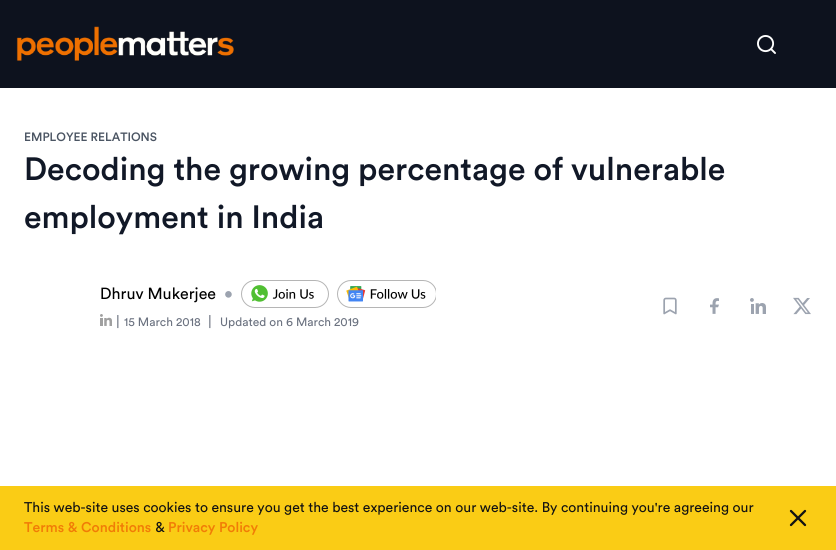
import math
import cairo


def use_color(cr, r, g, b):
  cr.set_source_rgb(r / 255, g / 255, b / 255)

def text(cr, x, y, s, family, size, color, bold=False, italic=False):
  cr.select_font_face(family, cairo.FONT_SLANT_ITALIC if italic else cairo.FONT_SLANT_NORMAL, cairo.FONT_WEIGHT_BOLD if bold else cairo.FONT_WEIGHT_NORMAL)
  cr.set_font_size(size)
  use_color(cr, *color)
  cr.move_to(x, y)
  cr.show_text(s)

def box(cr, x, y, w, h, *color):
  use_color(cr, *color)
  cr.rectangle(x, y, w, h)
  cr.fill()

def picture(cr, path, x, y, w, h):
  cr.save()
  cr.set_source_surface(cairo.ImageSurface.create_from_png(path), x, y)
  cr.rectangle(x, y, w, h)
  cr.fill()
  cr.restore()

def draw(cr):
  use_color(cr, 255, 255, 255)
  cr.paint()
  box(cr, 0, 0, 836, 88, 13, 18, 30)
  picture(cr, "img_01.png", 16, 26, 218, 35)
  picture(cr, "img_02.png", 757, 35, 19, 19)
  picture(cr, "img_03.png", 241, 280, 88, 28)
  picture(cr, "img_04.png", 337, 280, 99, 28)
  picture(cr, "img_05.png", 100, 314, 12, 12)
  picture(cr, "img_06.png", 663, 297, 14, 18)
  picture(cr, "img_07.png", 710, 298, 9, 16)
  picture(cr, "img_08.png", 750, 298, 16, 16)
  picture(cr, "img_09.png", 793, 297, 18, 18)
  box(cr, 0, 486, 836, 64, 250, 204, 21)
  cr.new_path()
  cr.move_to(805, 511)
  cr.line_to(791, 525)
  cr.move_to(791, 511)
  cr.line_to(805, 525)
  use_color(cr, 18, 18, 18)
  cr.set_line_width(2.3)
  cr.set_line_cap(cairo.LINE_CAP_ROUND)
  cr.set_line_join(cairo.LINE_JOIN_ROUND)
  cr.stroke()
  text(cr, 24, 141, "EMPLOYEE RELATIONS", "Circular Medium", 12, (75, 85, 99))
  text(cr, 24, 180, "Decoding the growing percentage of vulnerable", "Circular Medium", 32, (17, 24, 39))
  text(cr, 24, 228, "employment in India", "Circular Medium", 32, (17, 24, 39))
  text(cr, 100, 299, "Dhruv Mukerjee", "Circular", 16, (0, 0, 0))
  text(cr, 224, 299, "•", "Circular", 16, (156, 163, 175))
  text(cr, 116, 326, "|", "Circular", 14, (107, 114, 128))
  text(cr, 124, 326, "15 March 2018", "Circular", 12, (107, 114, 128))
  text(cr, 208, 326, "|", "Circular", 14, (107, 114, 128))
  text(cr, 220, 326, "Updated on 6 March 2019", "Circular", 12, (107, 114, 128))
  text(cr, 24, 512, "This web-site uses cookies to ensure you get the best experience on our web-site. By continuing you're agreeing our", "Circular", 14, (18, 18, 18))
  text(cr, 24, 532, "Terms & Conditions", "Circular Medium", 14, (241, 124, 6))
  text(cr, 155, 532, "&", "Circular", 14, (18, 18, 18))
  text(cr, 168, 532, "Privacy Policy", "Circular Medium", 14, (241, 124, 6))


surface = cairo.ImageSurface(cairo.FORMAT_RGB24, 836, 550)
cr = cairo.Context(surface)
options = cairo.FontOptions()
options.set_hint_metrics(cairo.HINT_METRICS_OFF)
options.set_hint_style(cairo.HINT_STYLE_NONE)
cr.set_font_options(options)
cr.set_miter_limit(4)
draw(cr)
surface.write_to_png("out.png")
